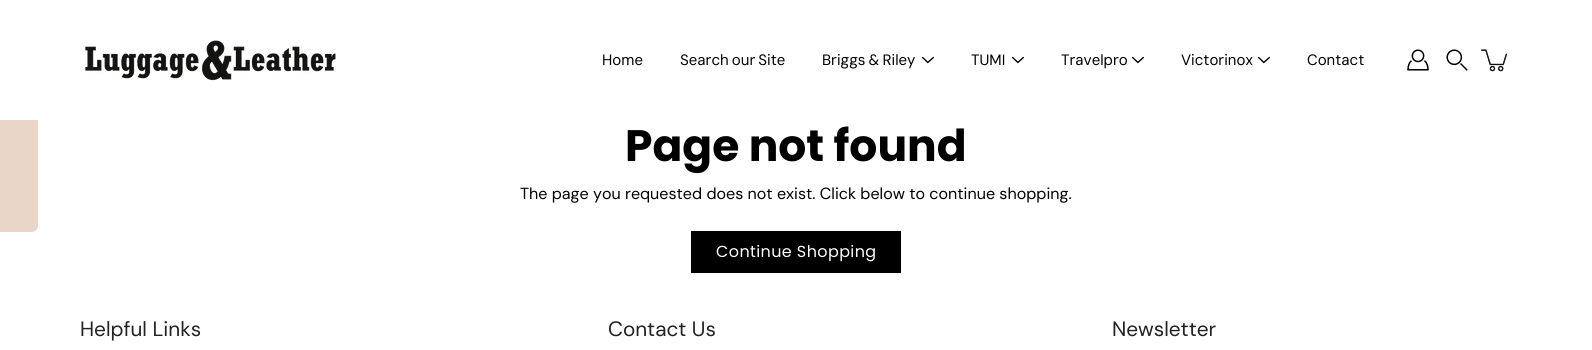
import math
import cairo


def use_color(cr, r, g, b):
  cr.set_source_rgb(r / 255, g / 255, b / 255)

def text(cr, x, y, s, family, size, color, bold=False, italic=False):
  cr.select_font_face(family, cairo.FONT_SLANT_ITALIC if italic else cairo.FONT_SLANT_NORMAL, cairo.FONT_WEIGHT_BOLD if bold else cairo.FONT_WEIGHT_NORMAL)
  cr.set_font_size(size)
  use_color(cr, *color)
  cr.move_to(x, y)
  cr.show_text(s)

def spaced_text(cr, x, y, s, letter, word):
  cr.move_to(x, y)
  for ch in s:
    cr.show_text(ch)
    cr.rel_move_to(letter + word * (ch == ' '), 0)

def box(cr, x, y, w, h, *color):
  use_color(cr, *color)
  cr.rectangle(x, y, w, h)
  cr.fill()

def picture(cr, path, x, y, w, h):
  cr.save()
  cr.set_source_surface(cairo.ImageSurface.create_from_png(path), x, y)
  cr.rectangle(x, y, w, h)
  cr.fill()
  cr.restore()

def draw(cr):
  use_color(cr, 255, 255, 255)
  cr.paint()
  use_color(cr, 234, 214, 201)
  cr.new_path()
  cr.move_to(-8, 226)
  cr.line_to(-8, 78)
  cr.curve_to(-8, 75, -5, 72, -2, 72)
  cr.line_to(32, 72)
  cr.curve_to(35, 72, 38, 75, 38, 78)
  cr.line_to(38, 226)
  cr.curve_to(38, 229, 35, 232, 32, 232)
  cr.line_to(-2, 232)
  cr.curve_to(-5, 232, -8, 229, -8, 226)
  cr.close_path()
  cr.fill()
  box(cr, 0, 72, 38, 48, 255, 255, 255)
  picture(cr, "img_01.png", 85, 40, 251, 41)
  picture(cr, "img_02.png", 922, 56, 12, 8)
  picture(cr, "img_02.png", 1012, 56, 12, 8)
  picture(cr, "img_02.png", 1132, 56, 12, 8)
  picture(cr, "img_02.png", 1258, 56, 12, 8)
  picture(cr, "img_03.png", 1407, 49, 22, 22)
  picture(cr, "img_04.png", 1446, 49, 22, 22)
  picture(cr, "img_05.png", 1481, 49, 26, 23)
  box(cr, 691, 231, 210, 42, 0, 0, 0)
  text(cr, 602, 65, "Home", "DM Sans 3", 15, (0, 0, 0))
  spaced_text(cr, 680, 65, "Search our Site", 0, -1)
  spaced_text(cr, 822, 65, "Briggs & Riley", 0, -1)
  text(cr, 971, 65, "TUMI", "DM Sans 3", 15, (0, 0, 0))
  text(cr, 1061, 65, "Travelpro", "DM Sans 3", 15, (0, 0, 0))
  text(cr, 1181, 65, "Victorinox", "DM Sans 3", 15, (0, 0, 0))
  text(cr, 1307, 65, "Contact", "DM Sans 3", 15, (0, 0, 0))
  text(cr, 625, 161, "Page not found", "Poppins", 44, (0, 0, 0), bold=True)
  text(cr, 520, 199, "The page you requested does not exist. Click below to continue shopping.", "DM Sans", 16.1, (0, 0, 0))
  cr.select_font_face("Poppins")
  cr.set_font_size(16)
  use_color(cr, 255, 255, 255)
  spaced_text(cr, 716, 257, "Continue Shopping", 0.4, 0)
  text(cr, 80, 336, "Helpful Links", "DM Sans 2", 20.75, (34, 34, 34))
  text(cr, 608, 336, "Contact Us", "DM Sans 2", 20.75, (34, 34, 34))
  text(cr, 1112, 336, "Newsletter", "DM Sans 2", 20.75, (34, 34, 34))


surface = cairo.ImageSurface(cairo.FORMAT_RGB24, 1592, 350)
cr = cairo.Context(surface)
options = cairo.FontOptions()
options.set_hint_metrics(cairo.HINT_METRICS_OFF)
options.set_hint_style(cairo.HINT_STYLE_NONE)
cr.set_font_options(options)
cr.set_miter_limit(4)
draw(cr)
surface.write_to_png("out.png")
